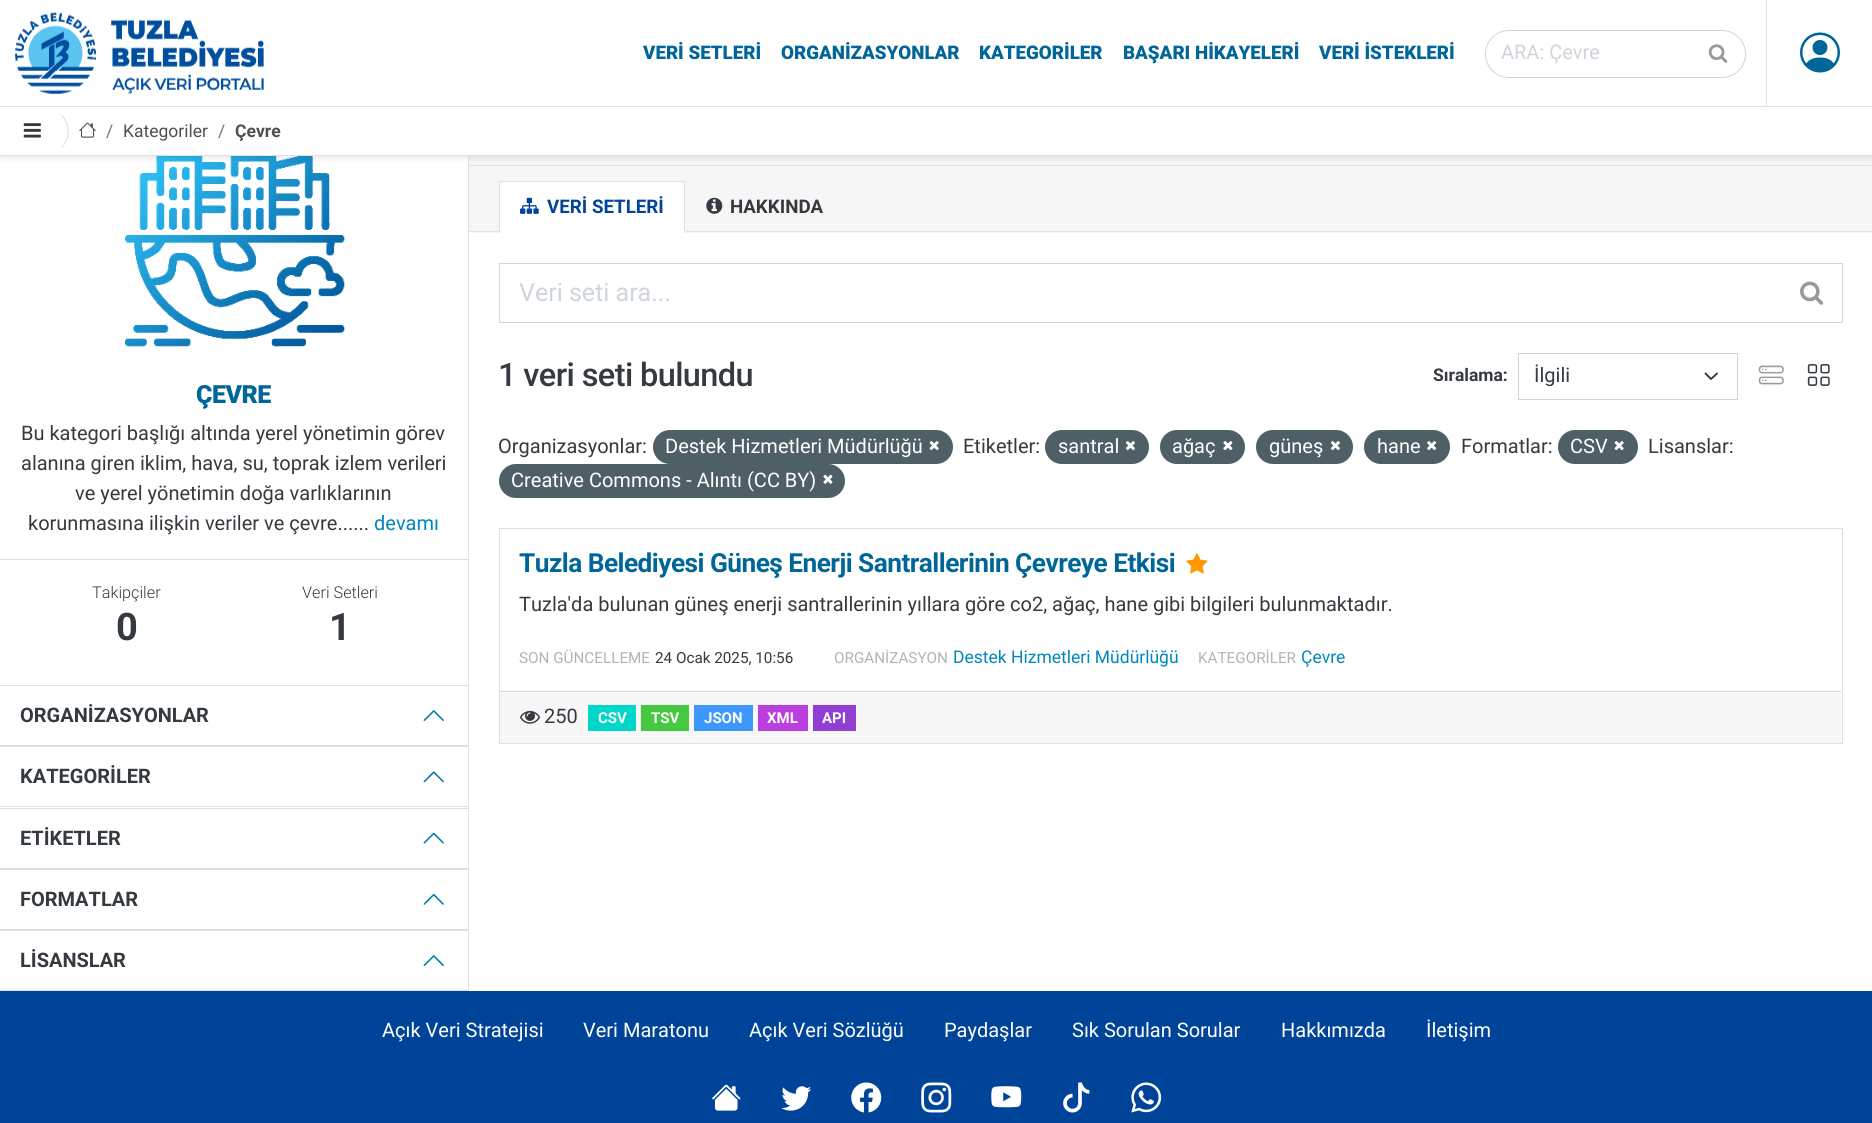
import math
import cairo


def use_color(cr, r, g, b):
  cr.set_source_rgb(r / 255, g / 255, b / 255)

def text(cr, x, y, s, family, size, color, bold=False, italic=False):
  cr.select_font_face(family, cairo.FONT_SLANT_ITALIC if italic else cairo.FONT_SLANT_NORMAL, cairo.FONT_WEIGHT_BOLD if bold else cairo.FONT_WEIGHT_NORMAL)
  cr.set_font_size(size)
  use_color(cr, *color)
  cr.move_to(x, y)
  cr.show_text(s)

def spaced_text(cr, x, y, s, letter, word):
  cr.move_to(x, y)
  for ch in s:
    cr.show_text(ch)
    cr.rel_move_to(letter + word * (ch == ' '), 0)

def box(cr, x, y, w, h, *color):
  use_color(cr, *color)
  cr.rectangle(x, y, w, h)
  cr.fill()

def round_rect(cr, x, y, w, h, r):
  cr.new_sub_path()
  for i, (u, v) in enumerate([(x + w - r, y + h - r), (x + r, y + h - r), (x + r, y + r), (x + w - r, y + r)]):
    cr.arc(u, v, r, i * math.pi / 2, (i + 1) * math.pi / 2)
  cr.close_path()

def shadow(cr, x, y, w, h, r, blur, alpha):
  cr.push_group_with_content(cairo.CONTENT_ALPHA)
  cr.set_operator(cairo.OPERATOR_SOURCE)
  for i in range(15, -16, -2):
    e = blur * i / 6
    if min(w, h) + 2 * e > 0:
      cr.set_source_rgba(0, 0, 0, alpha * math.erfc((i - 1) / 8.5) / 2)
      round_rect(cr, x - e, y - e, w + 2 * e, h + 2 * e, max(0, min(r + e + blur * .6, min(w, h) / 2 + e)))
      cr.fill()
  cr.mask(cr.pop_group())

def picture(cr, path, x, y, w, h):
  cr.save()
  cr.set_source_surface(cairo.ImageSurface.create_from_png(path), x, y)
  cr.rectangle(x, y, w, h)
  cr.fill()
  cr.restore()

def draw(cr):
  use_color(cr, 255, 255, 255)
  cr.paint()
  box(cr, 468, 156, 1, 835, 222, 226, 230)
  picture(cr, "img_06.png", 125, 156, 220, 191)
  box(cr, 469, 156, 1403, 9, 245, 245, 245)
  box(cr, 469, 165, 1403, 1, 222, 226, 230)
  box(cr, 469, 166, 1403, 67, 246, 246, 246)
  use_color(cr, 0, 0, 0)
  shadow(cr, 0, 3, 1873, 156, 0, 2.5, 0.07)
  box(cr, 0, 0, 1872, 155, 255, 255, 255)
  picture(cr, "img_01.png", 15, 12, 249, 82)
  round_rect(cr, 1485.5, 30.5, 260, 47, 23.5)
  use_color(cr, 206, 212, 218)
  cr.set_line_width(1)
  cr.stroke()
  picture(cr, "img_02.png", 1708, 44, 20, 19)
  box(cr, 1766, 0, 1, 106, 222, 226, 230)
  picture(cr, "img_03.png", 1800, 32, 40, 41)
  box(cr, 0, 106, 1872, 1, 222, 226, 230)
  box(cr, 0, 155, 1872, 1, 222, 226, 230)
  cr.new_path()
  cr.move_to(61.5, 115)
  cr.curve_to(70.5, 124, 70.5, 138.5, 61.5, 147.5)
  cr.set_line_width(1.2)
  cr.stroke()
  picture(cr, "img_04.png", 23, 123, 18, 15)
  picture(cr, "img_05.png", 79, 122, 17, 16)
  box(cr, 0, 559, 468, 1, 222, 226, 230)
  box(cr, 0, 685, 468, 1, 222, 226, 230)
  box(cr, 0, 745, 468, 2, 223, 223, 223)
  picture(cr, "img_07.png", 423, 710, 21, 11)
  box(cr, 0, 808, 468, 1, 223, 223, 223)
  box(cr, 0, 806, 468, 1, 223, 223, 223)
  picture(cr, "img_08.png", 423, 771, 21, 12)
  box(cr, 0, 868, 468, 2, 223, 223, 223)
  picture(cr, "img_09.png", 423, 832, 21, 12)
  box(cr, 0, 929, 468, 2, 223, 223, 223)
  picture(cr, "img_10.png", 423, 893, 21, 12)
  box(cr, 0, 990, 468, 1, 223, 223, 223)
  picture(cr, "img_07.png", 423, 955, 21, 11)
  box(cr, 469, 231, 1403, 1, 222, 226, 230)
  box(cr, 500, 182, 184, 51, 255, 255, 255)
  box(cr, 499, 181, 186, 1, 222, 226, 230)
  box(cr, 684, 181, 1, 52, 222, 226, 230)
  box(cr, 499, 231, 186, 1, 255, 255, 255)
  box(cr, 499, 181, 1, 52, 222, 226, 230)
  picture(cr, "img_11.png", 520, 197, 19, 17)
  picture(cr, "img_12.png", 706, 197, 17, 17)
  cr.rectangle(499.5, 263.5, 1343, 59)
  use_color(cr, 206, 212, 218)
  cr.set_line_width(1)
  cr.stroke()
  picture(cr, "img_13.png", 1800, 281, 24, 24)
  cr.new_path()
  cr.move_to(1705.5, 373.5)
  cr.line_to(1711, 379)
  cr.line_to(1717, 373.5)
  use_color(cr, 52, 58, 64)
  cr.set_line_width(1.9)
  cr.set_line_cap(cairo.LINE_CAP_ROUND)
  cr.set_line_join(cairo.LINE_JOIN_ROUND)
  cr.stroke()
  cr.rectangle(1518.5, 353.5, 219, 46)
  use_color(cr, 206, 212, 218)
  cr.set_line_width(1)
  cr.set_line_cap(cairo.LINE_CAP_BUTT)
  cr.set_line_join(cairo.LINE_JOIN_MITER)
  cr.stroke()
  picture(cr, "img_14.png", 1758, 365, 26, 20)
  picture(cr, "img_15.png", 1807, 364, 23, 22)
  use_color(cr, 78, 95, 101)
  round_rect(cr, 653, 430, 300, 34, 17)
  cr.fill()
  picture(cr, "img_16.png", 929, 441, 10, 10)
  round_rect(cr, 1045, 430, 104, 34, 17)
  cr.fill()
  picture(cr, "img_17.png", 1125, 441, 10, 10)
  round_rect(cr, 1160, 430, 85, 34, 17)
  cr.fill()
  picture(cr, "img_18.png", 1223, 441, 10, 10)
  round_rect(cr, 1256, 430, 97, 34, 17)
  cr.fill()
  picture(cr, "img_17.png", 1330, 441, 10, 10)
  round_rect(cr, 1364, 430, 86, 34, 17)
  cr.fill()
  picture(cr, "img_19.png", 1427, 441, 10, 10)
  round_rect(cr, 1558, 430, 80, 34, 17)
  cr.fill()
  picture(cr, "img_16.png", 1614, 441, 10, 10)
  round_rect(cr, 499, 464, 346, 34, 17)
  cr.fill()
  picture(cr, "img_20.png", 823, 474, 10, 10)
  cr.rectangle(499.5, 528.5, 1343, 215)
  use_color(cr, 223, 223, 223)
  cr.stroke()
  picture(cr, "img_21.png", 1186, 553, 22, 21)
  box(cr, 500, 692, 1341, 51, 247, 247, 247)
  box(cr, 500, 691, 1341, 1, 216, 216, 216)
  picture(cr, "img_22.png", 520, 710, 20, 14)
  box(cr, 588, 705, 48, 26, 1, 215, 201)
  box(cr, 641, 705, 48, 26, 69, 201, 65)
  box(cr, 694, 705, 59, 26, 62, 151, 253)
  box(cr, 758, 705, 50, 26, 187, 62, 222)
  box(cr, 813, 705, 43, 26, 144, 62, 211)
  box(cr, 0, 991, 1872, 132, 0, 68, 153)
  picture(cr, "img_23.png", 712, 1084, 29, 27)
  picture(cr, "img_24.png", 781, 1086, 31, 25)
  picture(cr, "img_25.png", 851, 1082, 31, 31)
  picture(cr, "img_26.png", 921, 1082, 31, 31)
  picture(cr, "img_27.png", 991, 1086, 31, 22)
  picture(cr, "img_28.png", 1063, 1082, 27, 31)
  picture(cr, "img_29.png", 1131, 1082, 31, 31)
  text(cr, 643, 59, "VERİ SETLERİ", "Roboto Black", 18.75, (0, 102, 153))
  text(cr, 781, 59, "ORGANİZASYONLAR", "Roboto Black", 18.75, (0, 102, 153))
  text(cr, 979, 59, "KATEGORİLER", "Roboto Black", 18.75, (0, 102, 153))
  text(cr, 1123, 59, "BAŞARI HİKAYELERİ", "Roboto Black", 18.75, (0, 102, 153))
  text(cr, 1319, 59, "VERİ İSTEKLERİ", "Roboto Black", 18.75, (0, 102, 153))
  text(cr, 1501, 59, "ARA: Çevre", "Roboto", 20, (206, 212, 218))
  text(cr, 106, 137, "/", "Roboto", 17.5, (108, 117, 125))
  text(cr, 123, 137, "Kategoriler", "Roboto", 17.5, (80, 80, 80))
  text(cr, 218, 137, "/", "Roboto", 17.5, (108, 117, 125))
  text(cr, 235, 137, "Çevre", "Roboto", 17.5, (80, 80, 80), bold=True)
  cr.select_font_face("Roboto Black")
  cr.set_font_size(25)
  use_color(cr, 0, 102, 153)
  spaced_text(cr, 196, 403, "ÇEVRE", -0.5, 0)
  text(cr, 21, 440, "Bu kategori başlığı altında yerel yönetimin görev", "Roboto", 20, (52, 58, 64))
  text(cr, 21, 470, "alanına giren iklim, hava, su, toprak izlem verileri", "Roboto", 20, (52, 58, 64))
  text(cr, 75, 500, "ve yerel yönetimin doğa varlıklarının", "Roboto", 20, (52, 58, 64))
  text(cr, 28, 530, "korunmasına ilişkin veriler ve çevre......", "Roboto", 20, (52, 58, 64))
  text(cr, 374, 530, "devamı", "Roboto", 20, (0, 136, 187))
  text(cr, 92, 598, "Takipçiler", "Roboto Light", 16.25, (52, 58, 64))
  text(cr, 116, 640, "0", "Roboto", 38, (52, 58, 64), bold=True)
  text(cr, 302, 598, "Veri Setleri", "Roboto Light", 16.25, (52, 58, 64))
  text(cr, 329, 640, "1", "Roboto", 38, (52, 58, 64), bold=True)
  text(cr, 20, 722, "ORGANİZASYONLAR", "Roboto", 20, (52, 58, 64), bold=True)
  text(cr, 20, 783, "KATEGORİLER", "Roboto", 20, (52, 58, 64), bold=True)
  text(cr, 20, 845, "ETİKETLER", "Roboto", 20, (52, 58, 64), bold=True)
  text(cr, 20, 906, "FORMATLAR", "Roboto", 20, (52, 58, 64), bold=True)
  text(cr, 20, 967, "LİSANSLAR", "Roboto", 20, (52, 58, 64), bold=True)
  text(cr, 547, 213, "VERİ SETLERİ", "Roboto", 18.75, (0, 68, 153), bold=True)
  text(cr, 730, 213, "HAKKINDA", "Roboto", 18.75, (52, 58, 64), bold=True)
  text(cr, 519, 301, "Veri seti ara...", "Roboto", 25, (206, 212, 218))
  cr.select_font_face("Roboto Medium")
  cr.set_font_size(32.5)
  use_color(cr, 52, 58, 64)
  spaced_text(cr, 498, 386, "1 veri seti bulundu", -0.6, 0)
  text(cr, 1433, 381, "Sıralama:", "Roboto", 17.5, (52, 58, 64), bold=True)
  text(cr, 1534, 382, "İlgili", "Roboto", 20, (52, 58, 64))
  text(cr, 498, 453, "Organizasyonlar:", "Roboto", 20, (52, 58, 64))
  text(cr, 665, 453, "Destek Hizmetleri Müdürlüğü", "Roboto", 20, (255, 255, 255))
  text(cr, 963, 453, "Etiketler:", "Roboto", 20, (52, 58, 64))
  text(cr, 1058, 453, "santral", "Roboto", 20, (255, 255, 255))
  text(cr, 1172, 453, "ağaç", "Roboto", 20, (255, 255, 255))
  text(cr, 1269, 453, "güneş", "Roboto", 20, (255, 255, 255))
  text(cr, 1377, 453, "hane", "Roboto", 20, (255, 255, 255))
  text(cr, 1461, 453, "Formatlar:", "Roboto", 20, (52, 58, 64))
  text(cr, 1570, 453, "CSV", "Roboto", 20, (255, 255, 255))
  text(cr, 1648, 453, "Lisanslar:", "Roboto", 20, (52, 58, 64))
  text(cr, 511, 487, "Creative Commons - Alıntı (CC BY)", "Roboto", 20, (255, 255, 255))
  cr.select_font_face("Roboto", cairo.FONT_SLANT_NORMAL, cairo.FONT_WEIGHT_BOLD)
  cr.set_font_size(26.25)
  use_color(cr, 0, 102, 153)
  spaced_text(cr, 519, 572, "Tuzla Belediyesi Güneş Enerji Santrallerinin Çevreye Etkisi", -0.53, 0)
  text(cr, 519, 611, "Tuzla'da bulunan güneş enerji santrallerinin yıllara göre co2, ağaç, hane gibi bilgileri bulunmaktadır.", "Roboto", 20, (52, 58, 64))
  text(cr, 519, 663, "SON GÜNCELLEME", "Roboto", 15.25, (173, 181, 189))
  text(cr, 655, 663, "24 Ocak 2025, 10:56", "Roboto", 15.25, (52, 58, 64))
  text(cr, 834, 663, "ORGANİZASYON", "Roboto", 15.25, (173, 181, 189))
  text(cr, 953, 663, "Destek Hizmetleri Müdürlüğü", "Roboto", 17.5, (0, 136, 187))
  text(cr, 1198, 663, "KATEGORİLER", "Roboto", 15.25, (173, 181, 189))
  text(cr, 1301, 663, "Çevre", "Roboto", 17.5, (0, 136, 187))
  text(cr, 544, 723, "250", "Roboto", 20, (52, 58, 64))
  text(cr, 598, 723, "CSV", "Roboto", 15, (255, 255, 255), bold=True)
  text(cr, 651, 723, "TSV", "Roboto", 15, (255, 255, 255), bold=True)
  text(cr, 704, 723, "JSON", "Roboto", 15, (255, 255, 255), bold=True)
  text(cr, 767, 723, "XML", "Roboto", 15, (255, 255, 255), bold=True)
  text(cr, 822, 723, "API", "Roboto", 15, (255, 255, 255), bold=True)
  text(cr, 382, 1037, "Açık Veri Stratejisi", "Roboto", 20, (255, 255, 255))
  text(cr, 583, 1037, "Veri Maratonu", "Roboto", 20, (255, 255, 255))
  text(cr, 749, 1037, "Açık Veri Sözlüğü", "Roboto", 20, (255, 255, 255))
  text(cr, 944, 1037, "Paydaşlar", "Roboto", 20, (255, 255, 255))
  text(cr, 1072, 1037, "Sık Sorulan Sorular", "Roboto", 20, (255, 255, 255))
  text(cr, 1281, 1037, "Hakkımızda", "Roboto", 20, (255, 255, 255))
  text(cr, 1426, 1037, "İletişim", "Roboto", 20, (255, 255, 255))


surface = cairo.ImageSurface(cairo.FORMAT_RGB24, 1872, 1123)
cr = cairo.Context(surface)
options = cairo.FontOptions()
options.set_hint_metrics(cairo.HINT_METRICS_OFF)
options.set_hint_style(cairo.HINT_STYLE_NONE)
cr.set_font_options(options)
cr.set_miter_limit(4)
draw(cr)
surface.write_to_png("out.png")
